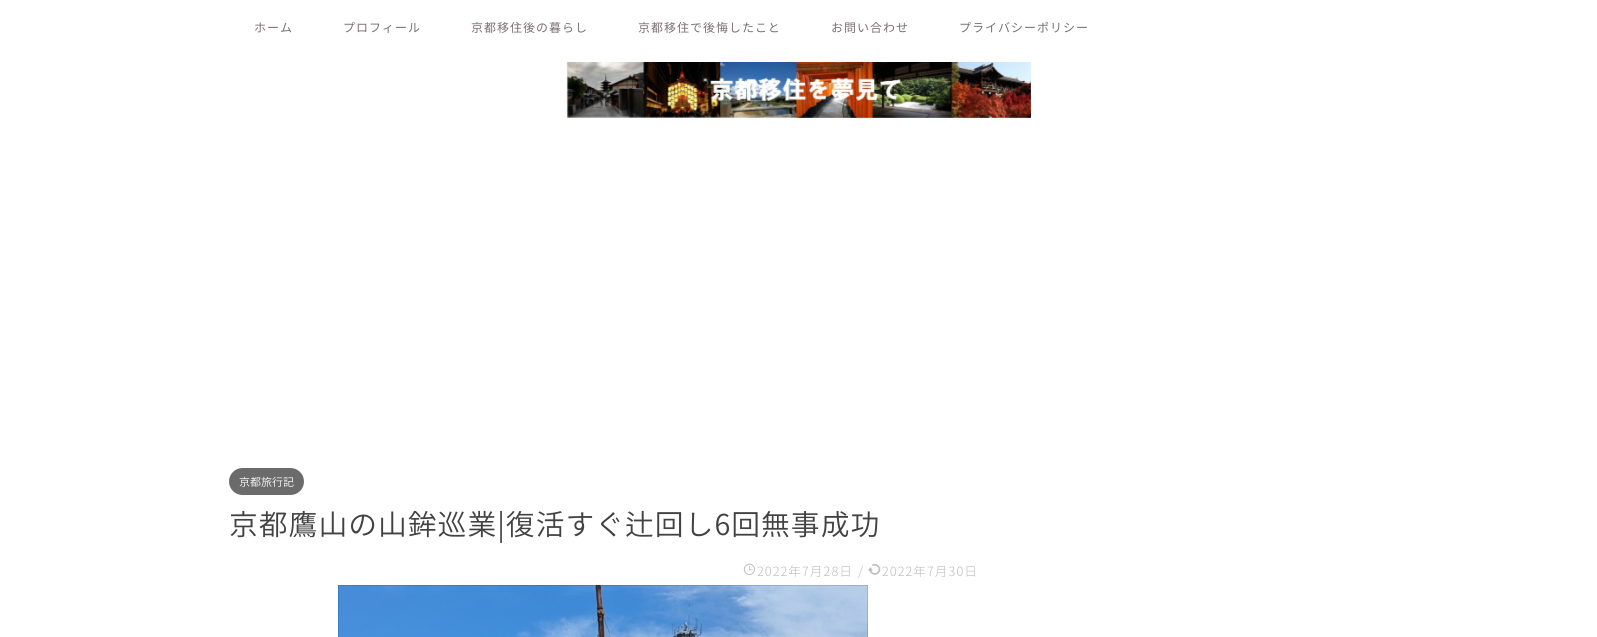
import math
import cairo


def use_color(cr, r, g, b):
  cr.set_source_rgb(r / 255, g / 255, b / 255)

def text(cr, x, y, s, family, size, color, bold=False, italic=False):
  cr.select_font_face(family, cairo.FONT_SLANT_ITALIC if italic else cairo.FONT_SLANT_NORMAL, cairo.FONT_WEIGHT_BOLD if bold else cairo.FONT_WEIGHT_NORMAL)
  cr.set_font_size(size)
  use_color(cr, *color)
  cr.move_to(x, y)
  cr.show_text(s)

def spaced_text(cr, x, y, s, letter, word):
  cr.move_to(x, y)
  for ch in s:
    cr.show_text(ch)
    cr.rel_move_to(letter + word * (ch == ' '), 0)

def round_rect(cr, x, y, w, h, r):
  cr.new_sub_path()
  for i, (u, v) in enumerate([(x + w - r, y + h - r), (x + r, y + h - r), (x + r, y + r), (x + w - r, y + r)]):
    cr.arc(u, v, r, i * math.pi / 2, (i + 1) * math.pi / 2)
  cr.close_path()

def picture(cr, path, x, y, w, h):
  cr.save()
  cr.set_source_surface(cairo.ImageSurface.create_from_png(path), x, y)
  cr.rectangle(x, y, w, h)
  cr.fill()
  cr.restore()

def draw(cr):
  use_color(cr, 255, 255, 255)
  cr.paint()
  picture(cr, "img_01.png", 566, 62, 465, 56)
  use_color(cr, 107, 107, 107)
  round_rect(cr, 229, 468, 75, 27, 13.5)
  cr.fill()
  picture(cr, "img_02.png", 743, 563, 13, 12)
  picture(cr, "img_03.png", 868, 563, 13, 12)
  picture(cr, "img_04.png", 338, 585, 530, 52)
  cr.select_font_face("Noto Sans JP")
  cr.set_font_size(12)
  use_color(cr, 122, 110, 113)
  spaced_text(cr, 254, 32, "ホーム", 1, 0)
  spaced_text(cr, 343, 32, "プロフィール", 1, 0)
  spaced_text(cr, 471, 32, "京都移住後の暮らし", 1, 0)
  spaced_text(cr, 638, 32, "京都移住で後悔したこと", 1, 0)
  spaced_text(cr, 831, 32, "お問い合わせ", 1, 0)
  spaced_text(cr, 959, 32, "プライバシーポリシー", 1, 0)
  text(cr, 239, 486, "京都旅行記", "Noto Sans JP Light", 11, (255, 255, 255))
  cr.set_font_size(28.8)
  use_color(cr, 66, 66, 66)
  spaced_text(cr, 229, 535, "京都鷹山の山鉾巡業|復活すぐ辻回し6回無事成功", 1, 0)
  cr.select_font_face("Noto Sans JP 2 Light")
  cr.set_font_size(12.75)
  use_color(cr, 187, 187, 187)
  spaced_text(cr, 757, 576, "2022年7月28日", 1, 0)
  spaced_text(cr, 858, 576, "/", 1, 0)
  spaced_text(cr, 882, 576, "2022年7月30日", 1, 0)


surface = cairo.ImageSurface(cairo.FORMAT_RGB24, 1597, 637)
cr = cairo.Context(surface)
options = cairo.FontOptions()
options.set_hint_metrics(cairo.HINT_METRICS_OFF)
options.set_hint_style(cairo.HINT_STYLE_NONE)
cr.set_font_options(options)
cr.set_miter_limit(4)
draw(cr)
surface.write_to_png("out.png")
